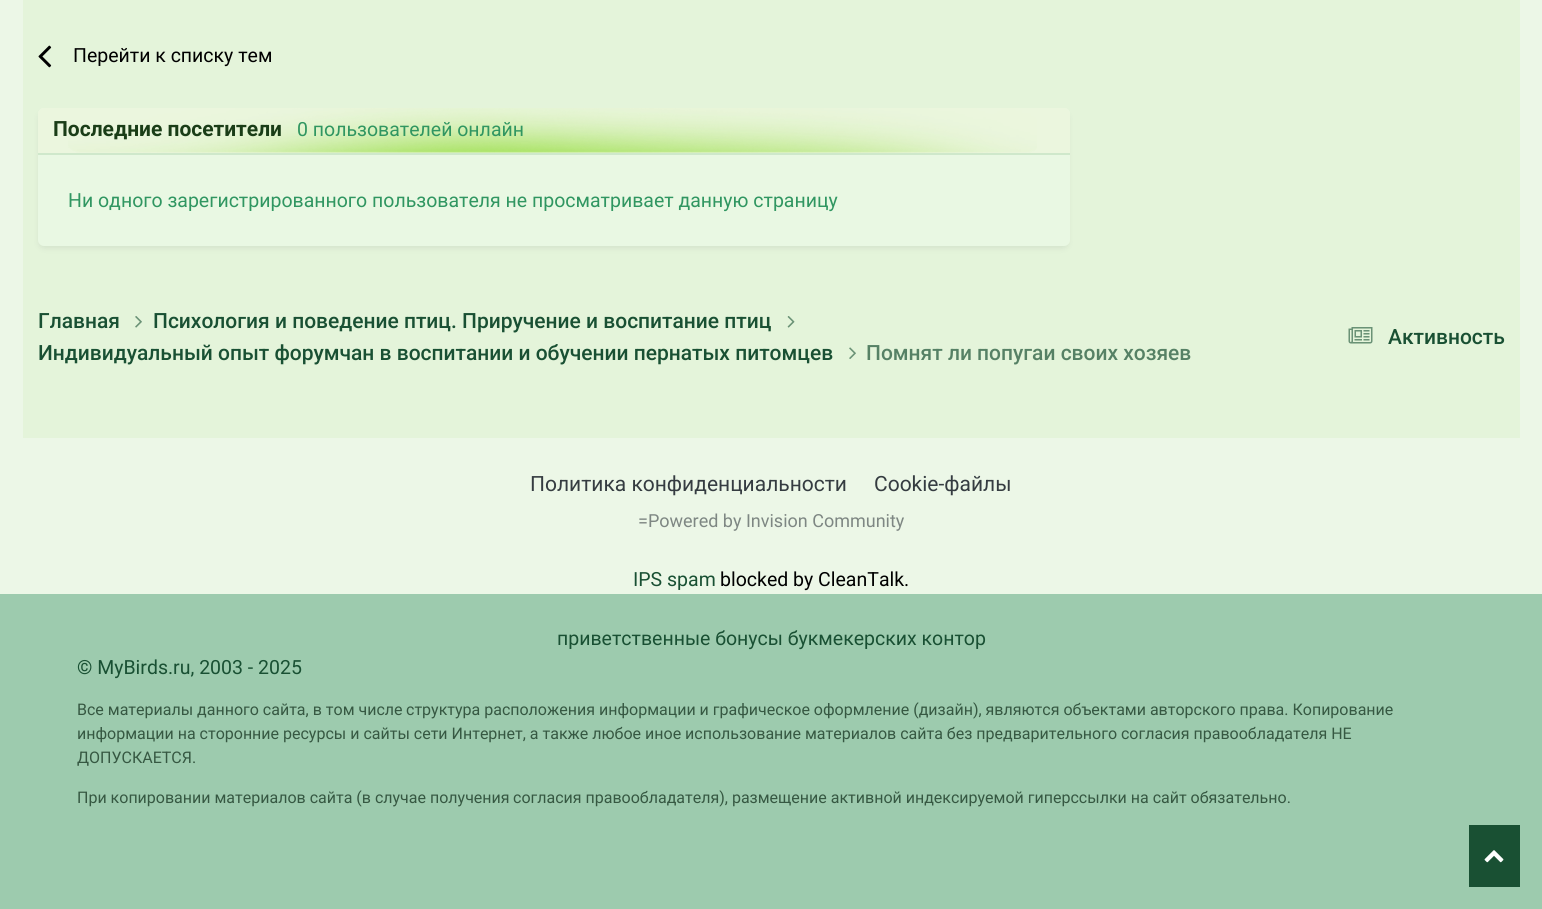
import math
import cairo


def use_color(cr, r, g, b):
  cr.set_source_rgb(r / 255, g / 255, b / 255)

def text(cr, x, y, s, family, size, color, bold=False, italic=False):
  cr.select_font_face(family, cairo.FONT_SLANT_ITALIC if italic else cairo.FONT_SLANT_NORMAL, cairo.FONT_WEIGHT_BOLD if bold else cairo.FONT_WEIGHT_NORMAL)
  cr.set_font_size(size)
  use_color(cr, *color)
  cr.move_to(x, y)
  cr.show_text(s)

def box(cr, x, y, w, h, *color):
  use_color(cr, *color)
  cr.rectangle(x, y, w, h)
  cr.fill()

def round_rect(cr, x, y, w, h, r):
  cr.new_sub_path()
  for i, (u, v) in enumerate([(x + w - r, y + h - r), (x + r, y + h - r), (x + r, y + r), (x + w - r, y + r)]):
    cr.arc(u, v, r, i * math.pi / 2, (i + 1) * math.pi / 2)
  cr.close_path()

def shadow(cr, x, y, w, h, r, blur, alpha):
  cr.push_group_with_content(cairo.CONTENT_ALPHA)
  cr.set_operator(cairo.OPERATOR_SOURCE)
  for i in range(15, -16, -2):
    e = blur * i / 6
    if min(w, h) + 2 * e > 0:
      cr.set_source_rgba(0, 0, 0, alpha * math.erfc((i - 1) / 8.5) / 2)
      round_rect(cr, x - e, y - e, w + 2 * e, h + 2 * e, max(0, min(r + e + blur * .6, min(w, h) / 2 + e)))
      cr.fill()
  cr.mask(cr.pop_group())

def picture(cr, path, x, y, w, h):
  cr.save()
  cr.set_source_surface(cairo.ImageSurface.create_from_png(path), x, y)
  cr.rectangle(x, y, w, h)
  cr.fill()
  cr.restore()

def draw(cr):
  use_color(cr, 236, 247, 231)
  cr.paint()
  box(cr, 23, 0, 1497, 438, 228, 244, 218)
  picture(cr, "img_01.png", 38, 45, 14, 23)
  use_color(cr, 45, 55, 72)
  shadow(cr, 39, 113, 1029, 135, 5, 3, 0.1)
  use_color(cr, 233, 248, 227)
  round_rect(cr, 38, 108, 1032, 138, 6)
  cr.fill()
  use_color(cr, 235, 246, 222)
  cr.new_path()
  cr.move_to(44, 108)
  cr.line_to(1064, 108)
  cr.curve_to(1067.5, 108, 1070, 110.5, 1070, 114)
  cr.line_to(1070, 155)
  cr.line_to(38, 155)
  cr.line_to(38, 114)
  cr.curve_to(38, 110.5, 40.5, 108, 44, 108)
  cr.close_path()
  cr.fill()
  picture(cr, "img_02.png", 68, 108, 969, 45)
  box(cr, 38, 153, 1032, 2, 207, 232, 203)
  picture(cr, "img_03.png", 135, 316, 7, 12)
  picture(cr, "img_04.png", 787, 316, 8, 12)
  picture(cr, "img_05.png", 849, 347, 7, 12)
  picture(cr, "img_06.png", 1348, 327, 25, 17)
  box(cr, 0, 594, 1542, 315, 157, 203, 174)
  box(cr, 1469, 825, 51, 62, 25, 80, 51)
  picture(cr, "img_07.png", 1484, 850, 20, 13)
  text(cr, 73, 62, "Перейти к списку тем", "Roboto", 19.5, (0, 0, 0))
  text(cr, 53, 136, "Последние посетители", "Roboto", 21, (26, 61, 23), bold=True)
  text(cr, 297, 136, "0 пользователей онлайн", "Roboto", 19.5, (48, 150, 97))
  text(cr, 68, 207, "Ни одного зарегистрированного пользователя не просматривает данную страницу", "Roboto", 19.5, (48, 150, 97))
  text(cr, 38, 328, "Главная", "Roboto Medium", 21, (25, 80, 51))
  text(cr, 153, 328, "Психология и поведение птиц. Приручение и воспитание птиц", "Roboto Medium", 21, (25, 80, 51))
  text(cr, 38, 360, "Индивидуальный опыт форумчан в воспитании и обучении пернатых питомцев", "Roboto Medium", 21, (25, 80, 51))
  text(cr, 866, 360, "Помнят ли попугаи своих хозяев", "Roboto Medium", 21, (86, 129, 101))
  text(cr, 1388, 344, "Активность", "Roboto Medium", 21, (25, 80, 51))
  text(cr, 530, 491, "Политика конфиденциальности", "Roboto", 21, (53, 60, 65))
  text(cr, 874, 491, "Cookie-файлы", "Roboto", 21, (53, 60, 65))
  text(cr, 638, 527, "=Powered by Invision Community", "Roboto", 18, (126, 135, 131))
  text(cr, 633, 586, "IPS spam", "Roboto", 19.5, (25, 80, 51))
  text(cr, 720, 586, "blocked by CleanTalk.", "Roboto", 19.5, (0, 0, 0))
  text(cr, 557, 645, "приветственные бонусы букмекерских контор", "Roboto", 19.5, (25, 80, 51))
  text(cr, 77, 674, "© MyBirds.ru, 2003 - 2025", "Roboto", 19.5, (25, 80, 51))
  text(cr, 77, 715, "Все материалы данного сайта, в том числе", "Roboto", 16, (54, 88, 66))
  text(cr, 406, 715, "структура расположения информации и графическое оформление (дизайн), являются объектами авторского права. Копирование", "Roboto", 16, (54, 88, 66))
  text(cr, 77, 739, "информации на сторонние ресурсы и сайты сети Интернет, а также любое иное использование материалов сайта без предварительного согласия правообладателя НЕ", "Roboto", 16, (54, 88, 66))
  text(cr, 77, 763, "ДОПУСКАЕТСЯ.", "Roboto", 16, (54, 88, 66))
  text(cr, 77, 803, "При копировании материалов сайта (в случае получения", "Roboto", 16, (54, 88, 66))
  text(cr, 513, 803, "согласия правообладателя), размещение активной индексируемой гиперссылки на сайт обязательно.", "Roboto", 16, (54, 88, 66))


surface = cairo.ImageSurface(cairo.FORMAT_RGB24, 1542, 909)
cr = cairo.Context(surface)
options = cairo.FontOptions()
options.set_hint_metrics(cairo.HINT_METRICS_OFF)
options.set_hint_style(cairo.HINT_STYLE_NONE)
cr.set_font_options(options)
cr.set_miter_limit(4)
draw(cr)
surface.write_to_png("out.png")
